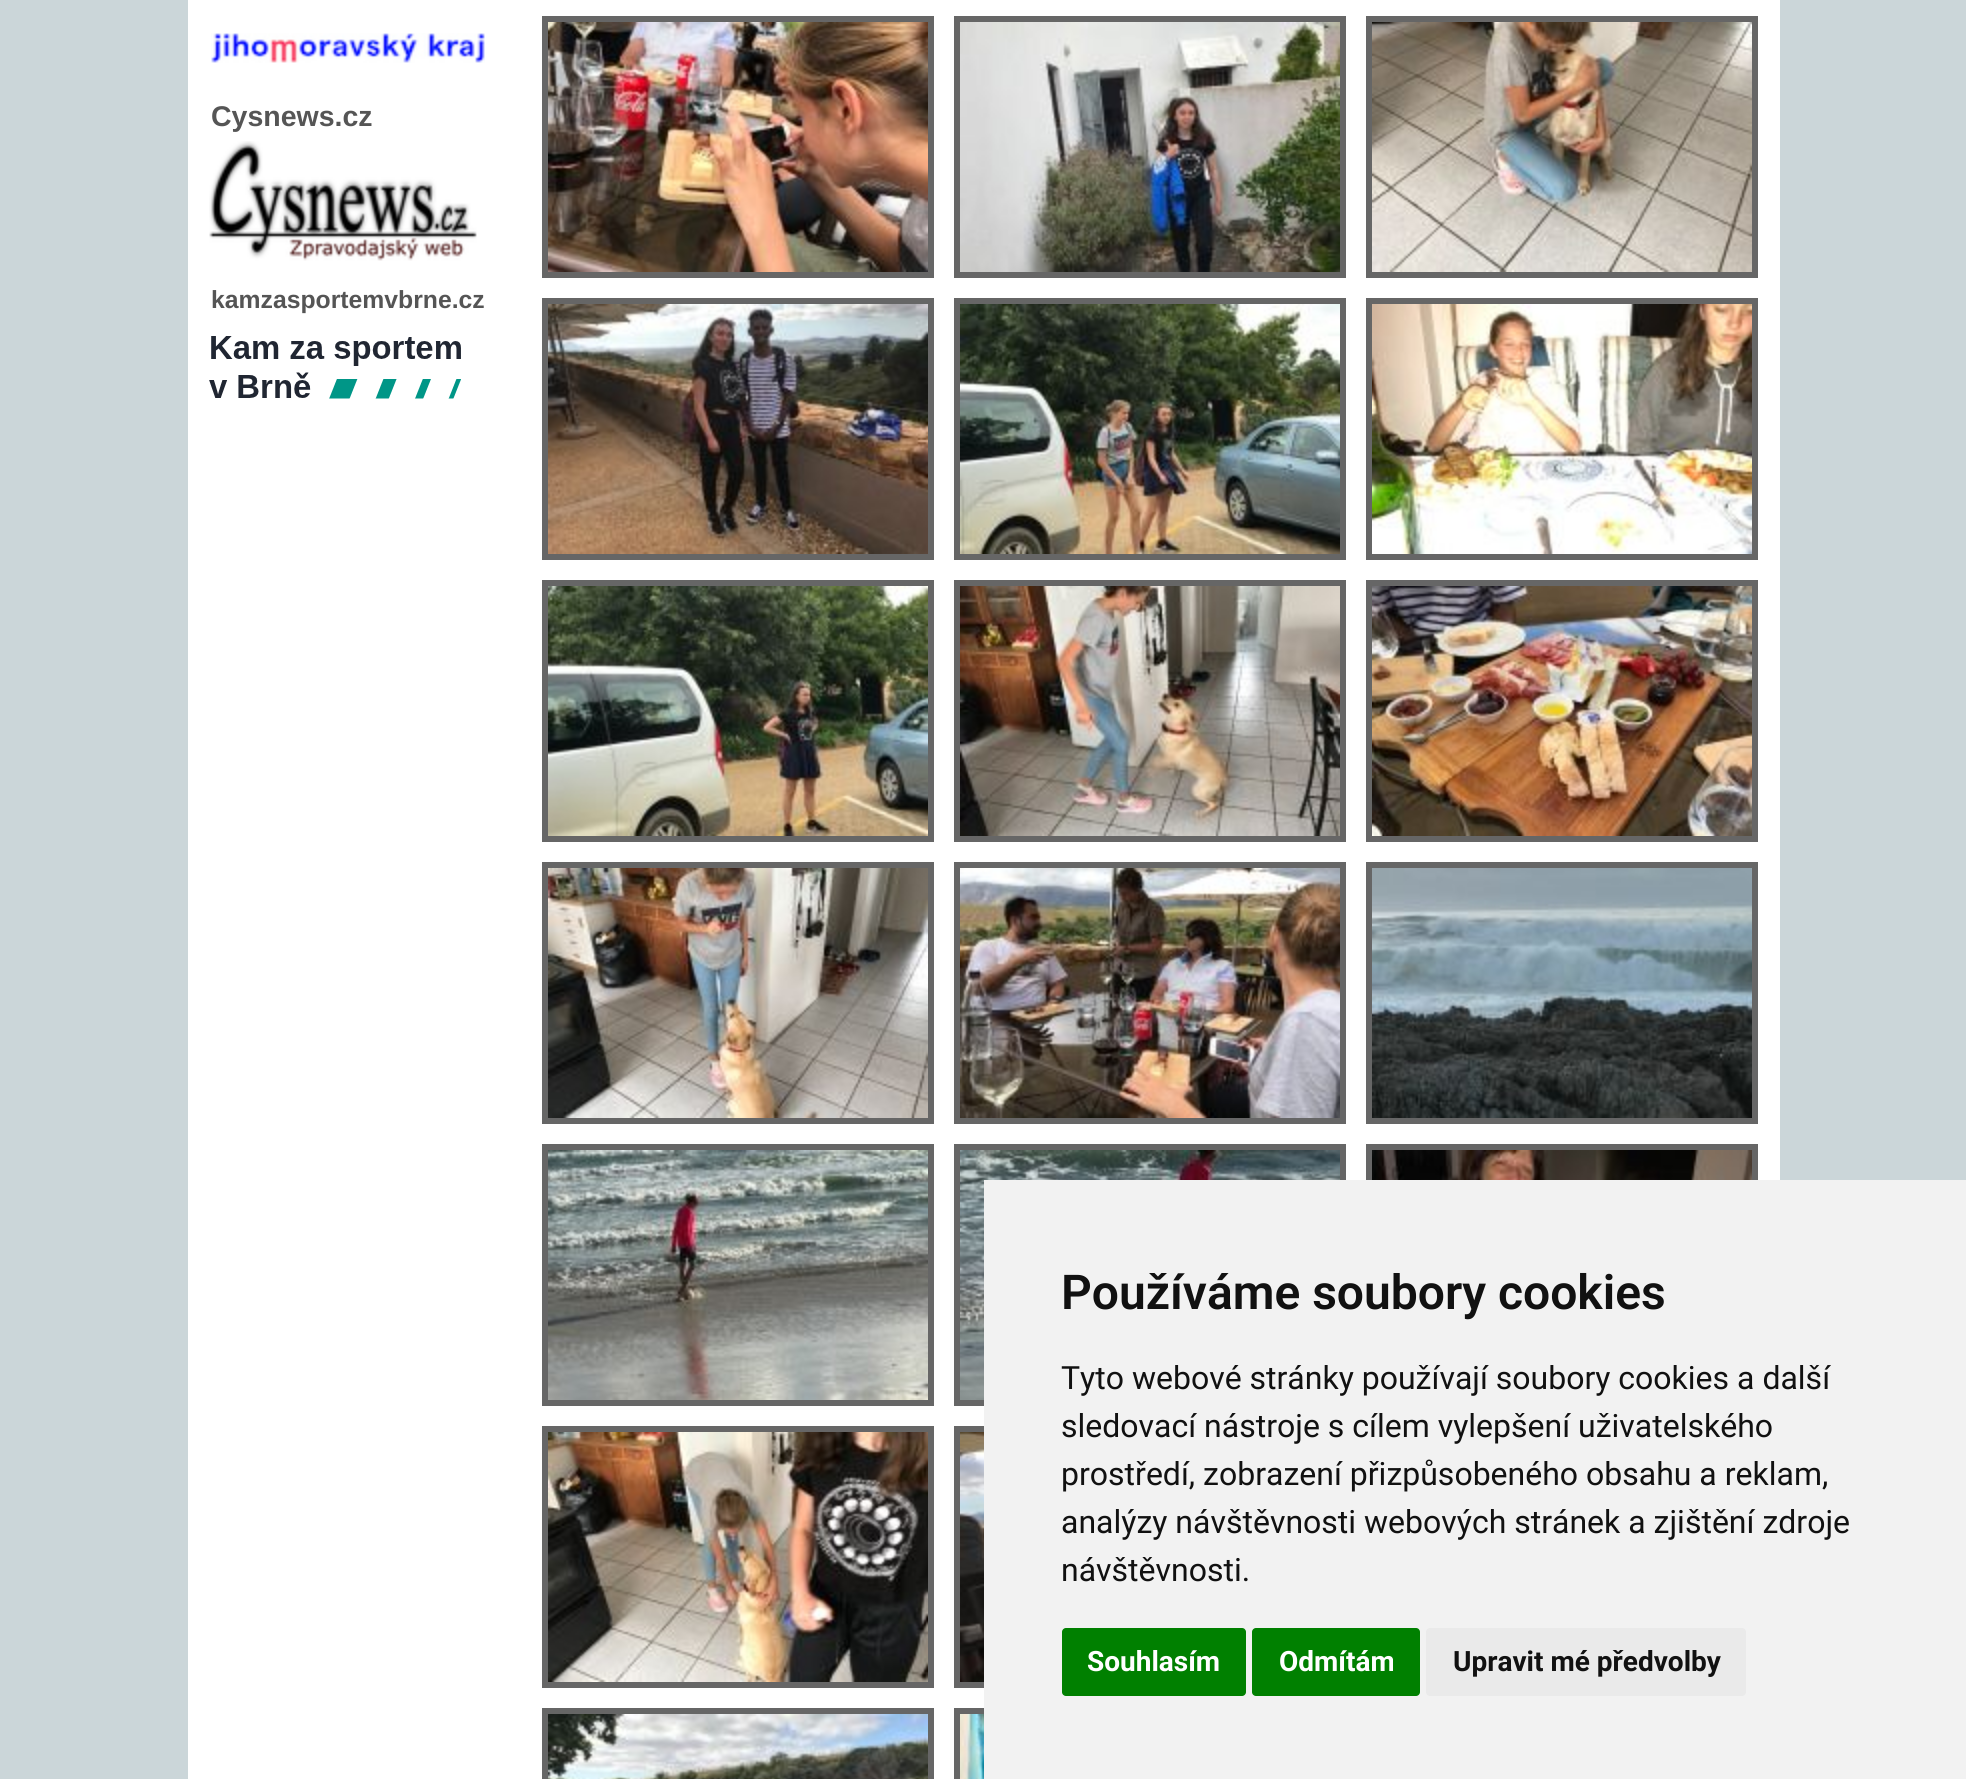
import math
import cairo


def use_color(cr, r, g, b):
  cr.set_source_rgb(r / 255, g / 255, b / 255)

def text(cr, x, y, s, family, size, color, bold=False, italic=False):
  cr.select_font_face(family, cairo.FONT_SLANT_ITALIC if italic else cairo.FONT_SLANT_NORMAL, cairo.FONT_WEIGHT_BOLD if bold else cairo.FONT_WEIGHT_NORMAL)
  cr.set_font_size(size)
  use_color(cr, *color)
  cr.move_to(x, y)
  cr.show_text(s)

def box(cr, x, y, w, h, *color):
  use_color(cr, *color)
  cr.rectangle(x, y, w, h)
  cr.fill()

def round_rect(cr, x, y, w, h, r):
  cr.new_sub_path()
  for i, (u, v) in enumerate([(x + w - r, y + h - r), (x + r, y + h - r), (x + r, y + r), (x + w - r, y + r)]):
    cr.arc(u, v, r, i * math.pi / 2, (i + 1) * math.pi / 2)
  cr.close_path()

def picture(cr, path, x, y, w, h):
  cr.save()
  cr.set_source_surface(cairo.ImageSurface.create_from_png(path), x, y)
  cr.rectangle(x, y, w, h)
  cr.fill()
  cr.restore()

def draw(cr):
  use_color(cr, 203, 214, 217)
  cr.paint()
  box(cr, 188, 0, 1592, 1779, 255, 255, 255)
  picture(cr, "img_01.png", 211, 33, 274, 30)
  picture(cr, "img_02.png", 209, 141, 268, 120)
  picture(cr, "img_03.png", 209, 336, 252, 63)
  cr.rectangle(545, 19, 386, 256)
  use_color(cr, 102, 102, 102)
  cr.set_line_width(6)
  cr.stroke()
  picture(cr, "img_04.png", 548, 22, 380, 250)
  cr.rectangle(957, 19, 386, 256)
  cr.stroke()
  picture(cr, "img_05.png", 960, 22, 380, 250)
  cr.rectangle(1369, 19, 386, 256)
  cr.stroke()
  picture(cr, "img_06.png", 1372, 22, 380, 250)
  cr.rectangle(545, 301, 386, 256)
  cr.stroke()
  picture(cr, "img_07.png", 548, 304, 380, 250)
  cr.rectangle(957, 301, 386, 256)
  cr.stroke()
  picture(cr, "img_08.png", 960, 304, 380, 250)
  cr.rectangle(1369, 301, 386, 256)
  cr.stroke()
  picture(cr, "img_09.png", 1372, 304, 380, 250)
  cr.rectangle(545, 583, 386, 256)
  cr.stroke()
  picture(cr, "img_10.png", 548, 586, 380, 250)
  cr.rectangle(957, 583, 386, 256)
  cr.stroke()
  picture(cr, "img_11.png", 960, 586, 380, 250)
  cr.rectangle(1369, 583, 386, 256)
  cr.stroke()
  picture(cr, "img_12.png", 1372, 586, 380, 250)
  cr.rectangle(545, 865, 386, 256)
  cr.stroke()
  picture(cr, "img_13.png", 548, 868, 380, 250)
  cr.rectangle(957, 865, 386, 256)
  cr.stroke()
  picture(cr, "img_14.png", 960, 868, 380, 250)
  cr.rectangle(1369, 865, 386, 256)
  cr.stroke()
  picture(cr, "img_15.png", 1372, 868, 380, 250)
  cr.rectangle(545, 1147, 386, 256)
  cr.stroke()
  picture(cr, "img_16.png", 548, 1150, 380, 250)
  cr.rectangle(957, 1147, 386, 256)
  cr.stroke()
  picture(cr, "img_17.png", 960, 1150, 380, 250)
  cr.rectangle(1369, 1147, 386, 256)
  cr.stroke()
  picture(cr, "img_18.png", 1372, 1150, 380, 30)
  cr.rectangle(545, 1429, 386, 256)
  cr.stroke()
  picture(cr, "img_19.png", 548, 1432, 380, 250)
  cr.rectangle(957, 1429, 386, 256)
  cr.stroke()
  picture(cr, "img_20.png", 960, 1432, 24, 250)
  cr.rectangle(545, 1711, 386, 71)
  cr.stroke()
  picture(cr, "img_21.png", 548, 1714, 380, 65)
  cr.rectangle(957, 1711, 386, 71)
  cr.stroke()
  picture(cr, "img_22.png", 960, 1714, 24, 65)
  box(cr, 984, 1180, 982, 599, 242, 242, 242)
  use_color(cr, 0, 128, 0)
  round_rect(cr, 1062, 1628, 184, 68, 4)
  cr.fill()
  round_rect(cr, 1252, 1628, 168, 68, 4)
  cr.fill()
  use_color(cr, 234, 234, 234)
  round_rect(cr, 1426, 1628, 320, 68, 4)
  cr.fill()
  text(cr, 211, 126, "Cysnews.cz", "Liberation Sans", 28.5, (85, 85, 85), bold=True)
  text(cr, 211, 308, "kamzasportemvbrne.cz", "Liberation Sans", 24.75, (85, 85, 85), bold=True)
  text(cr, 1061, 1309, "Používáme soubory cookies", "Roboto SemiBold", 48, (17, 17, 17))
  text(cr, 1061, 1389, "Tyto webové stránky používají soubory cookies a další", "Roboto", 32, (17, 17, 17))
  text(cr, 1061, 1437, "sledovací nástroje s cílem vylepšení uživatelského", "Roboto", 32, (17, 17, 17))
  text(cr, 1061, 1485, "prostředí, zobrazení přizpůsobeného obsahu a reklam,", "Roboto", 32, (17, 17, 17))
  text(cr, 1061, 1533, "analýzy návštěvnosti webových stránek a zjištění zdroje", "Roboto", 32, (17, 17, 17))
  text(cr, 1061, 1581, "návštěvnosti.", "Roboto", 32, (17, 17, 17))
  text(cr, 1087, 1671, "Souhlasím", "Roboto", 28, (255, 255, 255), bold=True)
  text(cr, 1279, 1671, "Odmítám", "Roboto", 28, (255, 255, 255), bold=True)
  text(cr, 1453, 1671, "Upravit mé předvolby", "Roboto", 28, (17, 17, 17), bold=True)


surface = cairo.ImageSurface(cairo.FORMAT_RGB24, 1966, 1779)
cr = cairo.Context(surface)
options = cairo.FontOptions()
options.set_hint_metrics(cairo.HINT_METRICS_OFF)
options.set_hint_style(cairo.HINT_STYLE_NONE)
cr.set_font_options(options)
cr.set_miter_limit(4)
draw(cr)
surface.write_to_png("out.png")
